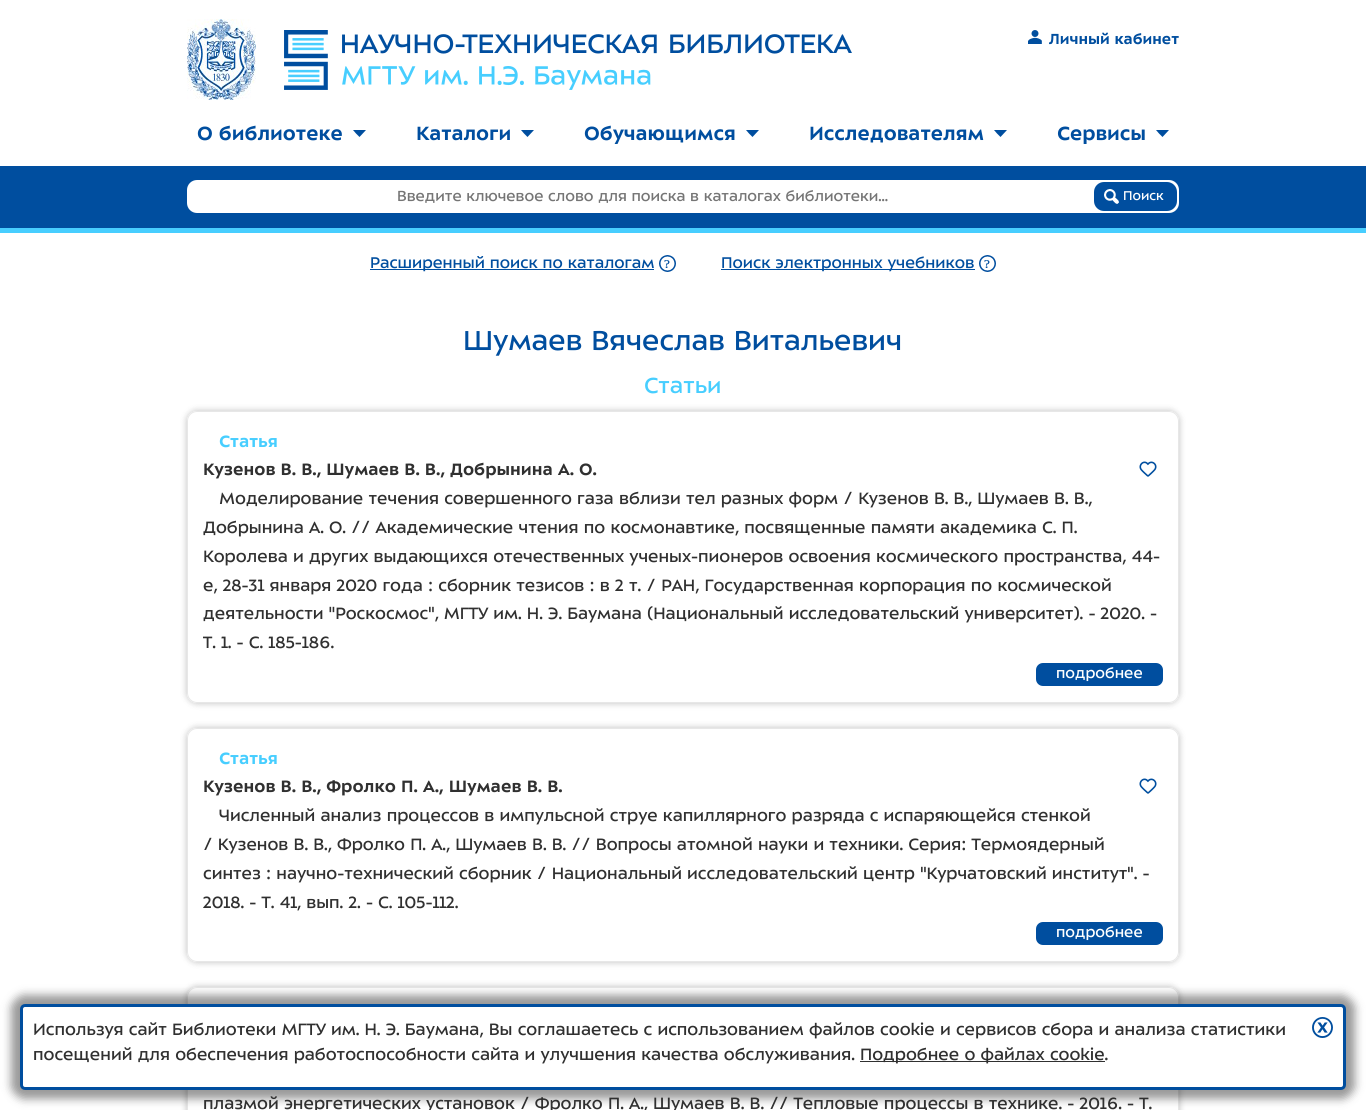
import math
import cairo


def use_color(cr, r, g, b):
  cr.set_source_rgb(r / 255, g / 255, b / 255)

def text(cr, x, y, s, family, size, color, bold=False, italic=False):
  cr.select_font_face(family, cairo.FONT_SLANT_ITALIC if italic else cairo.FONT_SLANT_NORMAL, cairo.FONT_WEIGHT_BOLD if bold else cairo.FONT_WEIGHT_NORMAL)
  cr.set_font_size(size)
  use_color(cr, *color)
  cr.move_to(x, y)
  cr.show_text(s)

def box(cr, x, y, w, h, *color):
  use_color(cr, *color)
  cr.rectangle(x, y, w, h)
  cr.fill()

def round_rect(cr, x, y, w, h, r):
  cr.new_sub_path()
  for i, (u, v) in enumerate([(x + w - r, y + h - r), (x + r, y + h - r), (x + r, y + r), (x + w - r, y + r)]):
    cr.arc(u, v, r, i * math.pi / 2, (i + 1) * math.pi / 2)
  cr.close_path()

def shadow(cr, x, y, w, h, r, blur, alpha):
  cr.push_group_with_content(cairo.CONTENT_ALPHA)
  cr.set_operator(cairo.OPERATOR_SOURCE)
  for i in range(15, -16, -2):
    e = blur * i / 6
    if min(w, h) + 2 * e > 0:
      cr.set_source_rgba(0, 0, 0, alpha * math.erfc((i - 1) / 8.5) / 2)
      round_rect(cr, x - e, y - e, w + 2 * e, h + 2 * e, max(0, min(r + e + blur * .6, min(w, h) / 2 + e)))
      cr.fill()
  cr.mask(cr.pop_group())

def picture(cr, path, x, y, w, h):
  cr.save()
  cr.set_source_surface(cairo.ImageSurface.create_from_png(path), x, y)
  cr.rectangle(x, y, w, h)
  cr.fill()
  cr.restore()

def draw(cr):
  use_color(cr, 255, 255, 255)
  cr.paint()
  picture(cr, "img_01.png", 187, 19, 69, 81)
  picture(cr, "img_02.png", 284, 30, 568, 60)
  picture(cr, "img_03.png", 1028, 30, 14, 14)
  use_color(cr, 0, 78, 159)
  cr.new_path()
  cr.move_to(356, 133.5)
  cr.line_to(353, 130)
  cr.line_to(366, 130)
  cr.line_to(359.5, 137)
  cr.close_path()
  cr.fill()
  cr.new_path()
  cr.move_to(524, 133.5)
  cr.line_to(521, 130)
  cr.line_to(534, 130)
  cr.line_to(527.5, 137)
  cr.close_path()
  cr.fill()
  cr.new_path()
  cr.move_to(749, 133.5)
  cr.line_to(746, 130)
  cr.line_to(759, 130)
  cr.line_to(752.5, 137)
  cr.close_path()
  cr.fill()
  cr.new_path()
  cr.move_to(997, 133.5)
  cr.line_to(994, 130)
  cr.line_to(1007, 130)
  cr.line_to(1000.5, 137)
  cr.close_path()
  cr.fill()
  cr.new_path()
  cr.move_to(1159, 133.5)
  cr.line_to(1156, 130)
  cr.line_to(1169, 130)
  cr.line_to(1162.5, 137)
  cr.close_path()
  cr.fill()
  box(cr, 0, 166, 1366, 62, 0, 78, 159)
  box(cr, 0, 228, 1366, 5, 71, 206, 255)
  use_color(cr, 255, 255, 255)
  round_rect(cr, 187, 180, 992, 33, 10)
  cr.fill()
  use_color(cr, 0, 78, 159)
  round_rect(cr, 1094, 182, 83, 29, 10)
  cr.fill()
  picture(cr, "img_04.png", 1104, 189, 15, 15)
  box(cr, 370, 269, 284, 1, 0, 78, 159)
  picture(cr, "img_05.png", 659, 255, 17, 17)
  box(cr, 721, 269, 254, 1, 0, 78, 159)
  picture(cr, "img_05.png", 979, 255, 17, 17)
  cr.save()
  cr.set_fill_rule(cairo.FILL_RULE_EVEN_ODD)
  cr.new_path()
  cr.move_to(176, 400)
  cr.line_to(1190, 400)
  cr.line_to(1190, 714)
  cr.line_to(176, 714)
  cr.close_path()
  cr.move_to(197, 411)
  cr.line_to(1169, 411)
  cr.curve_to(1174.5, 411, 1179, 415.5, 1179, 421)
  cr.line_to(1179, 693)
  cr.curve_to(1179, 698.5, 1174.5, 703, 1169, 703)
  cr.line_to(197, 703)
  cr.curve_to(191.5, 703, 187, 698.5, 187, 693)
  cr.line_to(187, 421)
  cr.curve_to(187, 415.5, 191.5, 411, 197, 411)
  cr.close_path()
  cr.clip()
  use_color(cr, 0, 0, 0)
  shadow(cr, 186, 410, 994, 294, 11, 3, 0.2)
  cr.restore()
  round_rect(cr, 187.5, 411.5, 991, 291, 9.5)
  use_color(cr, 231, 231, 231)
  cr.set_line_width(1)
  cr.stroke()
  picture(cr, "img_06.png", 1139, 461, 18, 16)
  use_color(cr, 0, 78, 159)
  round_rect(cr, 1036, 663, 127, 23, 7)
  cr.fill()
  cr.save()
  cr.set_fill_rule(cairo.FILL_RULE_EVEN_ODD)
  cr.new_path()
  cr.move_to(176, 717)
  cr.line_to(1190, 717)
  cr.line_to(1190, 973)
  cr.line_to(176, 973)
  cr.close_path()
  cr.move_to(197, 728)
  cr.line_to(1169, 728)
  cr.curve_to(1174.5, 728, 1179, 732.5, 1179, 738)
  cr.line_to(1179, 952)
  cr.curve_to(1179, 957.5, 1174.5, 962, 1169, 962)
  cr.line_to(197, 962)
  cr.curve_to(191.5, 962, 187, 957.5, 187, 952)
  cr.line_to(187, 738)
  cr.curve_to(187, 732.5, 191.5, 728, 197, 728)
  cr.close_path()
  cr.clip()
  use_color(cr, 0, 0, 0)
  shadow(cr, 186, 727, 994, 236, 11, 3, 0.2)
  cr.restore()
  round_rect(cr, 187.5, 728.5, 991, 233, 9.5)
  use_color(cr, 231, 231, 231)
  cr.stroke()
  picture(cr, "img_06.png", 1139, 778, 18, 16)
  use_color(cr, 0, 78, 159)
  round_rect(cr, 1036, 922, 127, 23, 7)
  cr.fill()
  cr.save()
  cr.set_fill_rule(cairo.FILL_RULE_EVEN_ODD)
  cr.new_path()
  cr.move_to(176, 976)
  cr.line_to(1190, 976)
  cr.line_to(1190, 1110)
  cr.line_to(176, 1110)
  cr.close_path()
  cr.move_to(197, 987)
  cr.line_to(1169, 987)
  cr.curve_to(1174.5, 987, 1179, 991.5, 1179, 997)
  cr.line_to(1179, 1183)
  cr.curve_to(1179, 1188.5, 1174.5, 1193, 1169, 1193)
  cr.line_to(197, 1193)
  cr.curve_to(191.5, 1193, 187, 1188.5, 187, 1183)
  cr.line_to(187, 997)
  cr.curve_to(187, 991.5, 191.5, 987, 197, 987)
  cr.close_path()
  cr.clip()
  use_color(cr, 0, 0, 0)
  shadow(cr, 186, 986, 994, 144, 11, 3, 0.2)
  cr.restore()
  round_rect(cr, 187.5, 987.5, 991, 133, 9.5)
  use_color(cr, 231, 231, 231)
  cr.stroke()
  use_color(cr, 0, 0, 0)
  shadow(cr, 11, 995, 1344, 104, 14, 4.5, 0.4)
  use_color(cr, 255, 255, 255)
  round_rect(cr, 21.5, 1005.5, 1323, 83, 3.5)
  cr.fill_preserve()
  use_color(cr, 0, 78, 159)
  cr.set_line_width(3)
  cr.stroke()
  box(cr, 860, 1061, 245, 1, 48, 48, 48)
  picture(cr, "img_07.png", 1312, 1017, 21, 21)
  text(cr, 1049, 44, "Личный кабинет", "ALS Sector", 16, (0, 78, 159), bold=True)
  text(cr, 197, 140, "О библиотеке", "ALS Sector", 21, (0, 78, 159), bold=True)
  text(cr, 416, 140, "Каталоги", "ALS Sector", 21, (0, 78, 159), bold=True)
  text(cr, 584, 140, "Обучающимся", "ALS Sector", 21, (0, 78, 159), bold=True)
  text(cr, 809, 140, "Исследователям", "ALS Sector", 21, (0, 78, 159), bold=True)
  text(cr, 1057, 140, "Сервисы", "ALS Sector", 21, (0, 78, 159), bold=True)
  text(cr, 397, 201, "Введите ключевое слово для поиска в каталогах библиотеки...", "ALS Sector", 16, (117, 117, 117))
  text(cr, 1123, 200, "Поиск", "ALS Sector", 14, (255, 255, 255))
  text(cr, 370, 268, "Расширенный поиск по каталогам", "ALS Sector", 17, (0, 78, 159))
  text(cr, 721, 268, "Поиск электронных учебников", "ALS Sector", 17, (0, 78, 159))
  text(cr, 463, 350, "Шумаев Вячеслав Витальевич", "ALS Sector", 30, (0, 78, 159))
  text(cr, 644, 393, "Статьи", "ALS Sector", 24, (71, 206, 255))
  text(cr, 219, 447, "Статья", "ALS Sector", 18, (71, 206, 255), bold=True)
  text(cr, 203, 475, "Кузенов В. В., Шумаев В. В., Добрынина А. О.", "ALS Sector", 18, (48, 48, 48), bold=True)
  text(cr, 219, 504, "Моделирование течения совершенного газа вблизи тел разных форм / Кузенов В. В., Шумаев В. В.,", "ALS Sector", 18, (48, 48, 48))
  text(cr, 203, 533, "Добрынина А. О. // Академические чтения по космонавтике, посвященные памяти академика С. П.", "ALS Sector", 18, (48, 48, 48))
  text(cr, 203, 562, "Королева и других выдающихся отечественных ученых-пионеров освоения космического пространства, 44-", "ALS Sector", 18, (48, 48, 48))
  text(cr, 203, 591, "е, 28-31 января 2020 года : сборник тезисов : в 2 т. / РАН, Государственная корпорация по космической", "ALS Sector", 18, (48, 48, 48))
  text(cr, 203, 619, "деятельности \"Роскосмос\", МГТУ им. Н. Э. Баумана (Национальный исследовательский университет). - 2020. -", "ALS Sector", 18, (48, 48, 48))
  text(cr, 203, 648, "Т. 1. - С. 185-186.", "ALS Sector", 18, (48, 48, 48))
  text(cr, 1056, 678, "подробнее", "ALS Sector", 16, (255, 255, 255))
  text(cr, 219, 764, "Статья", "ALS Sector", 18, (71, 206, 255), bold=True)
  text(cr, 203, 792, "Кузенов В. В., Фролко П. А., Шумаев В. В.", "ALS Sector", 18, (48, 48, 48), bold=True)
  text(cr, 219, 821, "Численный анализ процессов в импульсной струе капиллярного разряда с испаряющейся стенкой", "ALS Sector", 18, (48, 48, 48))
  text(cr, 203, 850, "/ Кузенов В. В., Фролко П. А., Шумаев В. В. // Вопросы атомной науки и техники. Серия: Термоядерный", "ALS Sector", 18, (48, 48, 48))
  text(cr, 203, 879, "синтез : научно-технический сборник / Национальный исследовательский центр \"Курчатовский институт\". -", "ALS Sector", 18, (48, 48, 48))
  text(cr, 203, 908, "2018. - Т. 41, вып. 2. - С. 105-112.", "ALS Sector", 18, (48, 48, 48))
  text(cr, 1056, 937, "подробнее", "ALS Sector", 16, (255, 255, 255))
  text(cr, 203, 1109, "плазмой энергетических установок / Фролко П. А., Шумаев В. В. // Тепловые процессы в технике. - 2016. - Т.", "ALS Sector", 18, (48, 48, 48))
  text(cr, 33, 1035, "Используя сайт Библиотеки МГТУ им. Н. Э. Баумана, Вы соглашаетесь с использованием файлов cookie и сервисов сбора и анализа статистики", "ALS Sector", 18, (48, 48, 48))
  text(cr, 33, 1060, "посещений для обеспечения работоспособности сайта и улучшения качества обслуживания.", "ALS Sector", 18, (48, 48, 48))
  text(cr, 860, 1060, "Подробнее о файлах cookie.", "ALS Sector", 18, (48, 48, 48))


surface = cairo.ImageSurface(cairo.FORMAT_RGB24, 1366, 1110)
cr = cairo.Context(surface)
options = cairo.FontOptions()
options.set_hint_metrics(cairo.HINT_METRICS_OFF)
options.set_hint_style(cairo.HINT_STYLE_NONE)
cr.set_font_options(options)
cr.set_miter_limit(4)
draw(cr)
surface.write_to_png("out.png")
